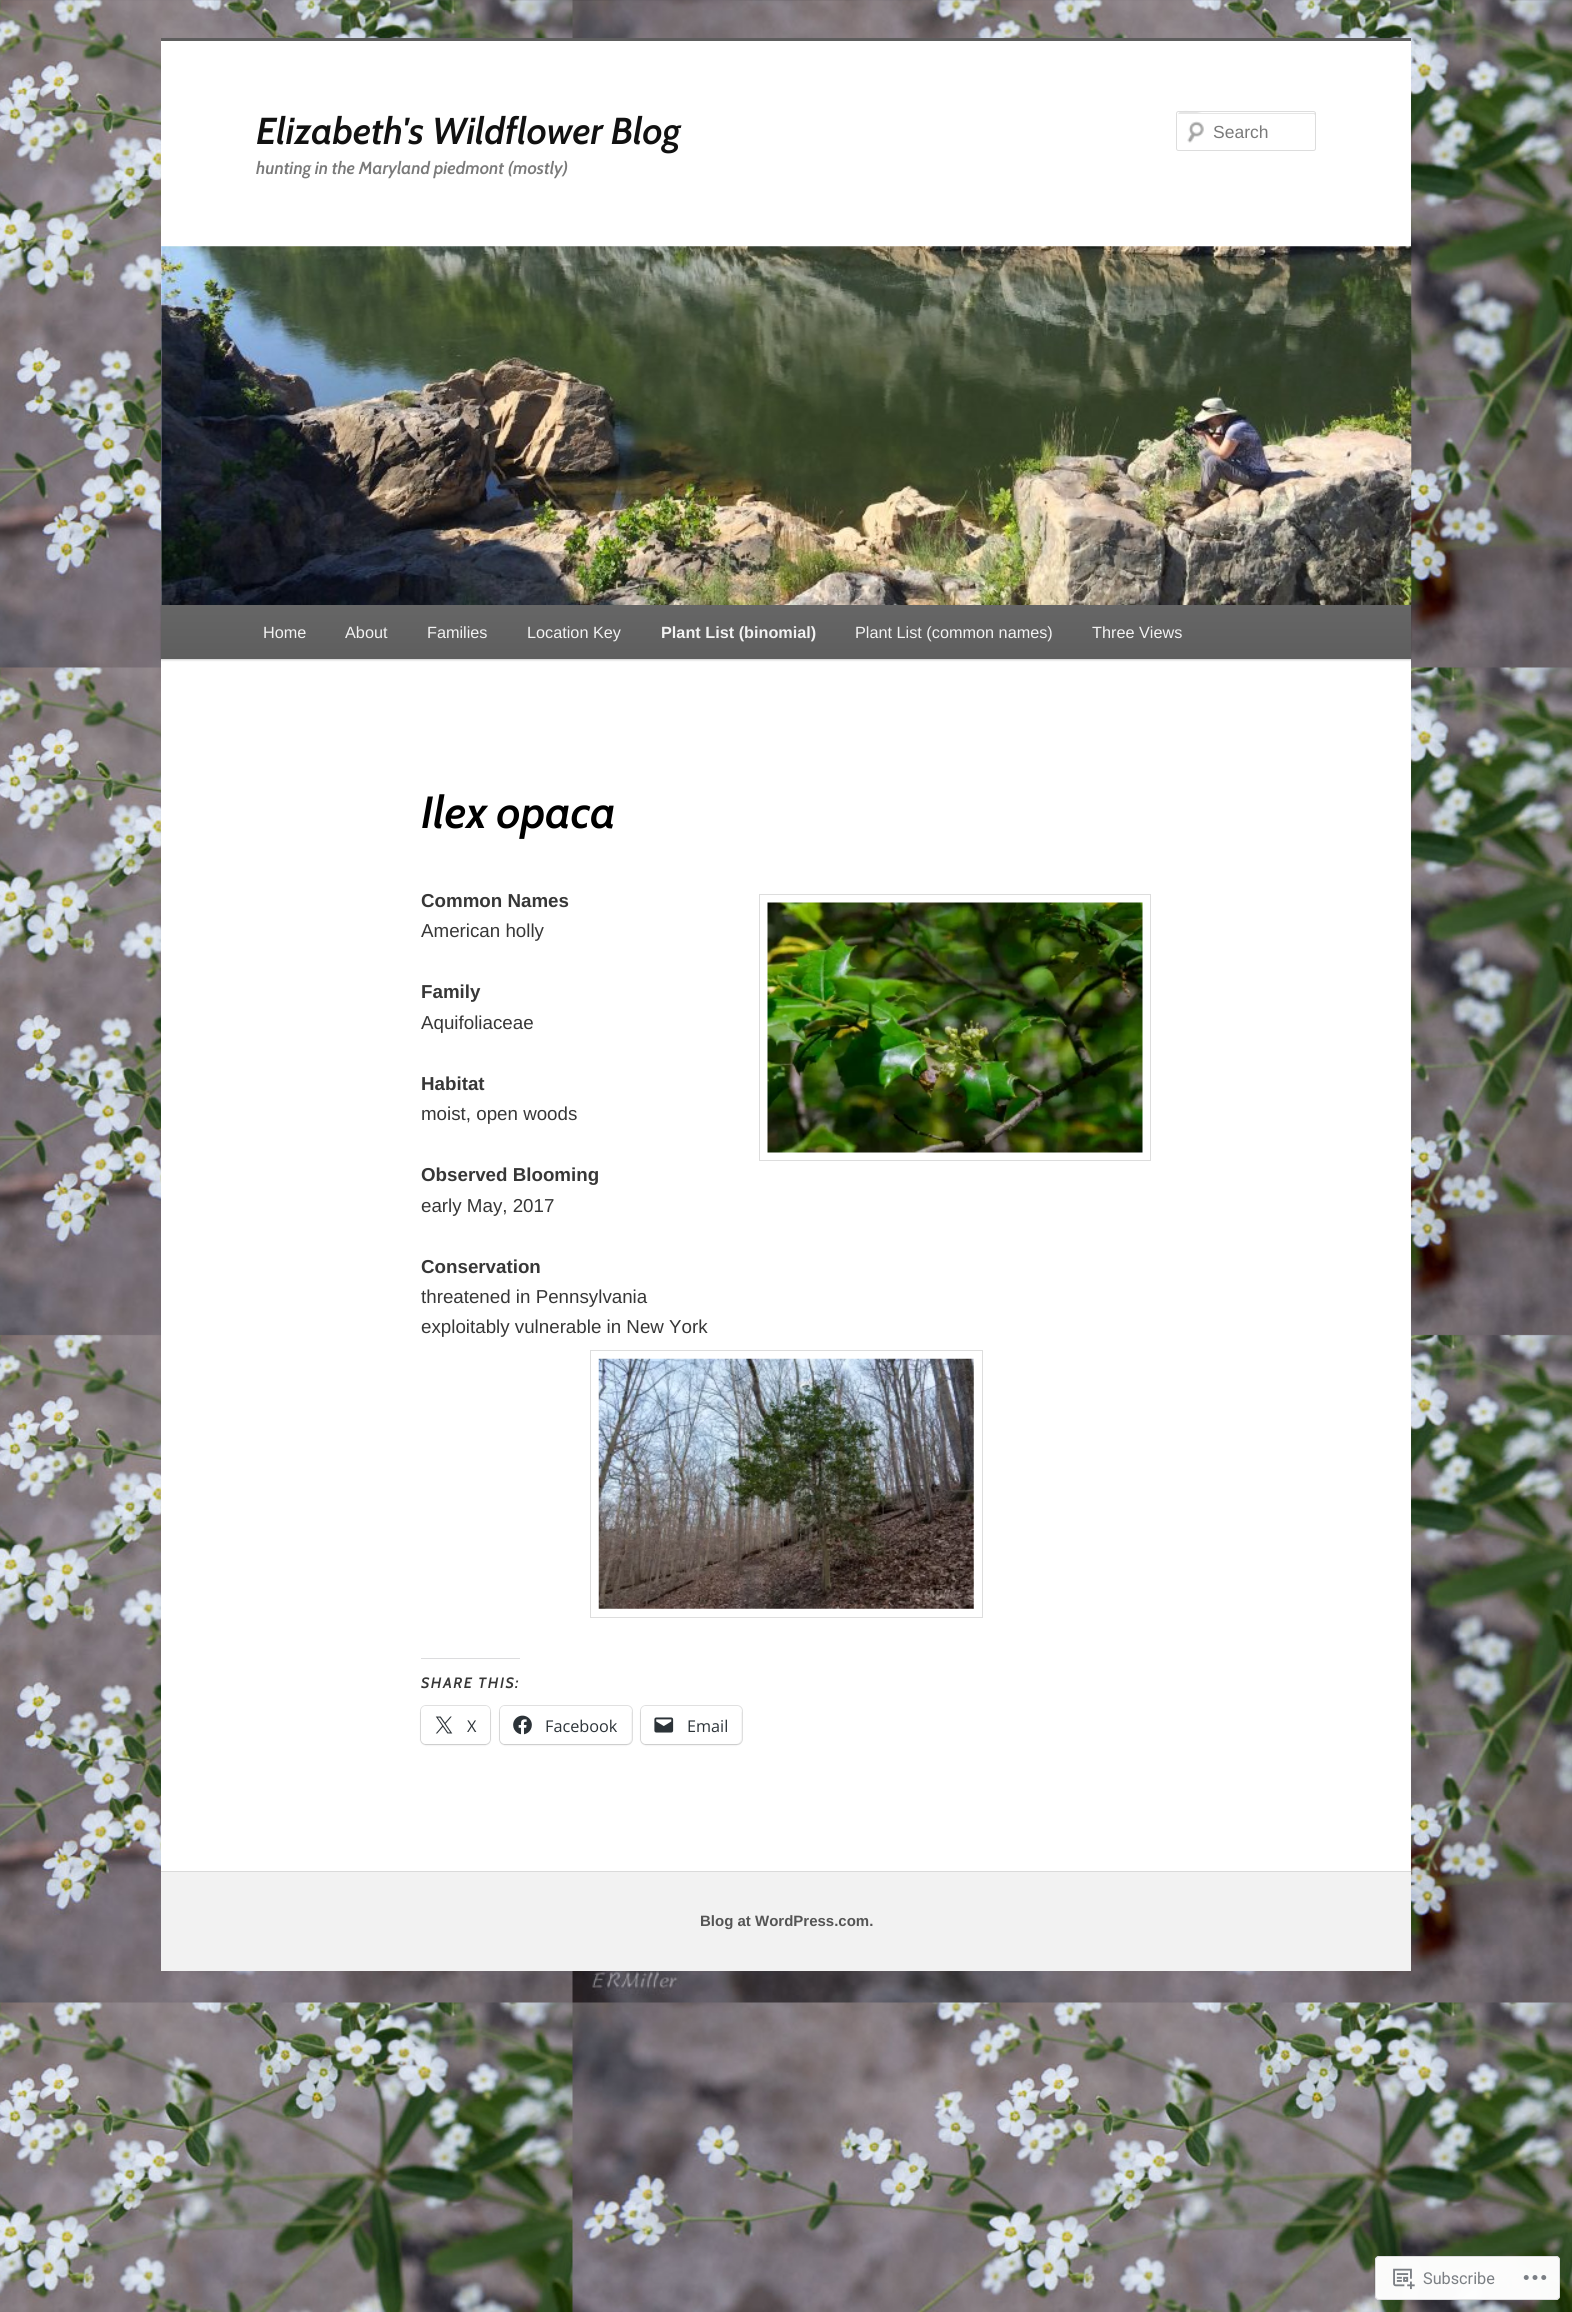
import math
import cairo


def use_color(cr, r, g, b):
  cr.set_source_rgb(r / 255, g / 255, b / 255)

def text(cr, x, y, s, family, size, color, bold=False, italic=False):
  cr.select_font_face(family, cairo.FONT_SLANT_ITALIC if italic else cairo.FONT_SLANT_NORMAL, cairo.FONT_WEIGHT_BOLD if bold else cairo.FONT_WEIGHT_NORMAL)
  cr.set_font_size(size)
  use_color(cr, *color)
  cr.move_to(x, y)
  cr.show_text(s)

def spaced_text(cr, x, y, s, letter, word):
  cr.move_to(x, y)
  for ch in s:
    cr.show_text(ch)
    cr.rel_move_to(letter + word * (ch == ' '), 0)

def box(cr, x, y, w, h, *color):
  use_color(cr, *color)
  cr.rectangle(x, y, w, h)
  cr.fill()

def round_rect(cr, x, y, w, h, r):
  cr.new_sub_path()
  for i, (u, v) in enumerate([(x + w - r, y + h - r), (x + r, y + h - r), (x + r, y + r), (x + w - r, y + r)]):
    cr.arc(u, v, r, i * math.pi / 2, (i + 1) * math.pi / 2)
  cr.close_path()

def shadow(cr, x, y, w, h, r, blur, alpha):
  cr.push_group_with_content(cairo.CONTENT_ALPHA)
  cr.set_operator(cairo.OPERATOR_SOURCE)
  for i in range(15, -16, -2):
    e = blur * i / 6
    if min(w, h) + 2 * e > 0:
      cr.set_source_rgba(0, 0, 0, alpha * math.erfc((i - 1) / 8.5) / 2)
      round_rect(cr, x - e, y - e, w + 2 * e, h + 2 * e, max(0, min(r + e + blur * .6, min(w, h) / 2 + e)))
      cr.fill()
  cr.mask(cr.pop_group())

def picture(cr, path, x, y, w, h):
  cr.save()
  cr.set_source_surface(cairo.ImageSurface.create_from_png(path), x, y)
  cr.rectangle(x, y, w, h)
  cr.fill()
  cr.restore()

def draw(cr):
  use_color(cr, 255, 255, 255)
  cr.paint()
  picture(cr, "img_01.png", 0, 0, 1572, 2312)
  box(cr, 161, 41, 1250, 1830, 255, 255, 255)
  box(cr, 161, 38, 1250, 3, 94, 94, 94)
  picture(cr, "img_02.png", 1187, 121, 17, 22)
  use_color(cr, 230, 230, 230)
  cr.new_path()
  cr.move_to(1179, 114)
  cr.line_to(1314, 114)
  cr.line_to(1315, 115)
  cr.line_to(1315, 113)
  cr.line_to(1202, 113)
  cr.curve_to(1201, 113, 1178, 107, 1178, 115)
  cr.curve_to(1178, 114, 1178, 114, 1179, 114)
  cr.close_path()
  cr.fill()
  round_rect(cr, 1176.5, 111.5, 139, 39, 2)
  use_color(cr, 221, 221, 221)
  cr.set_line_width(1)
  cr.stroke()
  use_color(cr, 0, 0, 0)
  shadow(cr, 161, 606, 1250, 54, 0, 1, 0.2)
  picture(cr, "img_03.png", 161, 246, 1251, 359)
  gradient = cairo.LinearGradient(786, 605, 786, 659)
  gradient.add_color_stop_rgba(0, 0.4, 0.4, 0.4, 1)
  gradient.add_color_stop_rgba(1, 0.369, 0.369, 0.369, 1)
  cr.set_source(gradient)
  cr.rectangle(161, 605, 1250, 54)
  cr.fill()
  cr.rectangle(759.5, 894.5, 391, 266)
  use_color(cr, 221, 221, 221)
  cr.stroke()
  picture(cr, "img_04.png", 767, 902, 376, 251)
  cr.rectangle(590.5, 1350.5, 392, 267)
  cr.stroke()
  picture(cr, "img_05.png", 598, 1358, 376, 251)
  box(cr, 421, 1658, 99, 1, 220, 220, 222)
  round_rect(cr, 420.5, 1705.5, 70, 39, 5.5)
  use_color(cr, 224, 224, 224)
  cr.stroke()
  use_color(cr, 0, 0, 0)
  shadow(cr, 421, 1708, 69, 37, 5, 1, 0.12)
  use_color(cr, 255, 255, 255)
  round_rect(cr, 421, 1706, 69, 38, 5)
  cr.fill()
  picture(cr, "img_06.png", 435, 1716, 18, 18)
  round_rect(cr, 499.5, 1705.5, 133, 39, 5.5)
  use_color(cr, 224, 224, 224)
  cr.stroke()
  use_color(cr, 0, 0, 0)
  shadow(cr, 500, 1708, 131, 37, 5, 1, 0.12)
  use_color(cr, 255, 255, 255)
  round_rect(cr, 500, 1706, 131, 38, 5)
  cr.fill()
  picture(cr, "img_07.png", 513, 1715, 19, 20)
  round_rect(cr, 640.5, 1705.5, 102, 39, 5.5)
  use_color(cr, 224, 224, 224)
  cr.stroke()
  use_color(cr, 0, 0, 0)
  shadow(cr, 641, 1708, 100, 37, 5, 1, 0.12)
  use_color(cr, 255, 255, 255)
  round_rect(cr, 641, 1706, 100, 38, 5)
  cr.fill()
  picture(cr, "img_08.png", 654, 1717, 20, 16)
  box(cr, 161, 1872, 1250, 99, 242, 242, 242)
  box(cr, 161, 1871, 1250, 1, 218, 218, 218)
  cr.set_source_rgba(1, 1, 1, 0.98)
  round_rect(cr, 1375, 2256, 185, 44, 4)
  cr.fill()
  round_rect(cr, 1375.5, 2256.5, 184, 43, 3.5)
  cr.set_source_rgba(0.863, 0.863, 0.871, 0.98)
  cr.stroke()
  picture(cr, "img_09.png", 1393, 2268, 22, 22)
  picture(cr, "img_10.png", 1523, 2275, 24, 5)
  text(cr, 256, 144, "Elizabeth's Wildflower Blog", "Cabin SemiBold", 37.5, (17, 17, 17), italic=True)
  text(cr, 256, 174, "hunting in the Maryland piedmont (mostly)", "Cabin SemiBold", 17.5, (122, 122, 122), italic=True)
  text(cr, 1213, 138, "Search", "Liberation Sans", 17.5, (122, 122, 122))
  text(cr, 263, 638, "Home", "Liberation Sans", 16.25, (242, 242, 242))
  text(cr, 345, 638, "About", "Liberation Sans", 16.25, (242, 242, 242))
  text(cr, 427, 638, "Families", "Liberation Sans", 16.25, (242, 242, 242))
  text(cr, 527, 638, "Location Key", "Liberation Sans", 16.25, (242, 242, 242))
  text(cr, 661, 638, "Plant List (binomial)", "Liberation Sans", 16.25, (242, 242, 242), bold=True)
  text(cr, 855, 638, "Plant List (common names)", "Liberation Sans", 16.25, (242, 242, 242))
  text(cr, 1092, 638, "Three Views", "Liberation Sans", 16.25, (242, 242, 242))
  text(cr, 421, 828, "Ilex opaca", "Cabin SemiBold", 45, (0, 0, 0), italic=True)
  text(cr, 421, 907, "Common Names", "Liberation Sans", 18.75, (55, 55, 55), bold=True)
  text(cr, 421, 937, "American holly", "Liberation Sans", 18.75, (55, 55, 55))
  text(cr, 421, 998, "Family", "Liberation Sans", 18.75, (55, 55, 55), bold=True)
  text(cr, 421, 1029, "Aquifoliaceae", "Liberation Sans", 18.75, (55, 55, 55))
  text(cr, 421, 1090, "Habitat", "Liberation Sans", 18.75, (55, 55, 55), bold=True)
  text(cr, 421, 1120, "moist, open woods", "Liberation Sans", 18.75, (55, 55, 55))
  text(cr, 421, 1181, "Observed Blooming", "Liberation Sans", 18.75, (55, 55, 55), bold=True)
  text(cr, 421, 1212, "early May, 2017", "Liberation Sans", 18.75, (55, 55, 55))
  text(cr, 421, 1273, "Conservation", "Liberation Sans", 18.75, (55, 55, 55), bold=True)
  text(cr, 421, 1303, "threatened in Pennsylvania", "Liberation Sans", 18.75, (55, 55, 55))
  text(cr, 421, 1333, "exploitably vulnerable in New York", "Liberation Sans", 18.75, (55, 55, 55))
  cr.select_font_face("Cabin SemiBold", cairo.FONT_SLANT_ITALIC)
  cr.set_font_size(15)
  spaced_text(cr, 421, 1688, "SHARE THIS:", 1.5, 0)
  text(cr, 467, 1732, "X", "Open Sans", 16.25, (44, 51, 56))
  text(cr, 545, 1732, "Facebook", "Open Sans", 16.25, (44, 51, 56))
  text(cr, 687, 1732, "Email", "Open Sans", 16.25, (44, 51, 56))
  text(cr, 700, 1926, "Blog at WordPress.com.", "Liberation Sans", 15, (85, 85, 85), bold=True)
  text(cr, 1423, 2284, "Subscribe", "Roboto", 16.25, (123, 127, 132))


surface = cairo.ImageSurface(cairo.FORMAT_RGB24, 1572, 2312)
cr = cairo.Context(surface)
options = cairo.FontOptions()
options.set_hint_metrics(cairo.HINT_METRICS_OFF)
options.set_hint_style(cairo.HINT_STYLE_NONE)
cr.set_font_options(options)
cr.set_miter_limit(4)
draw(cr)
surface.write_to_png("out.png")
